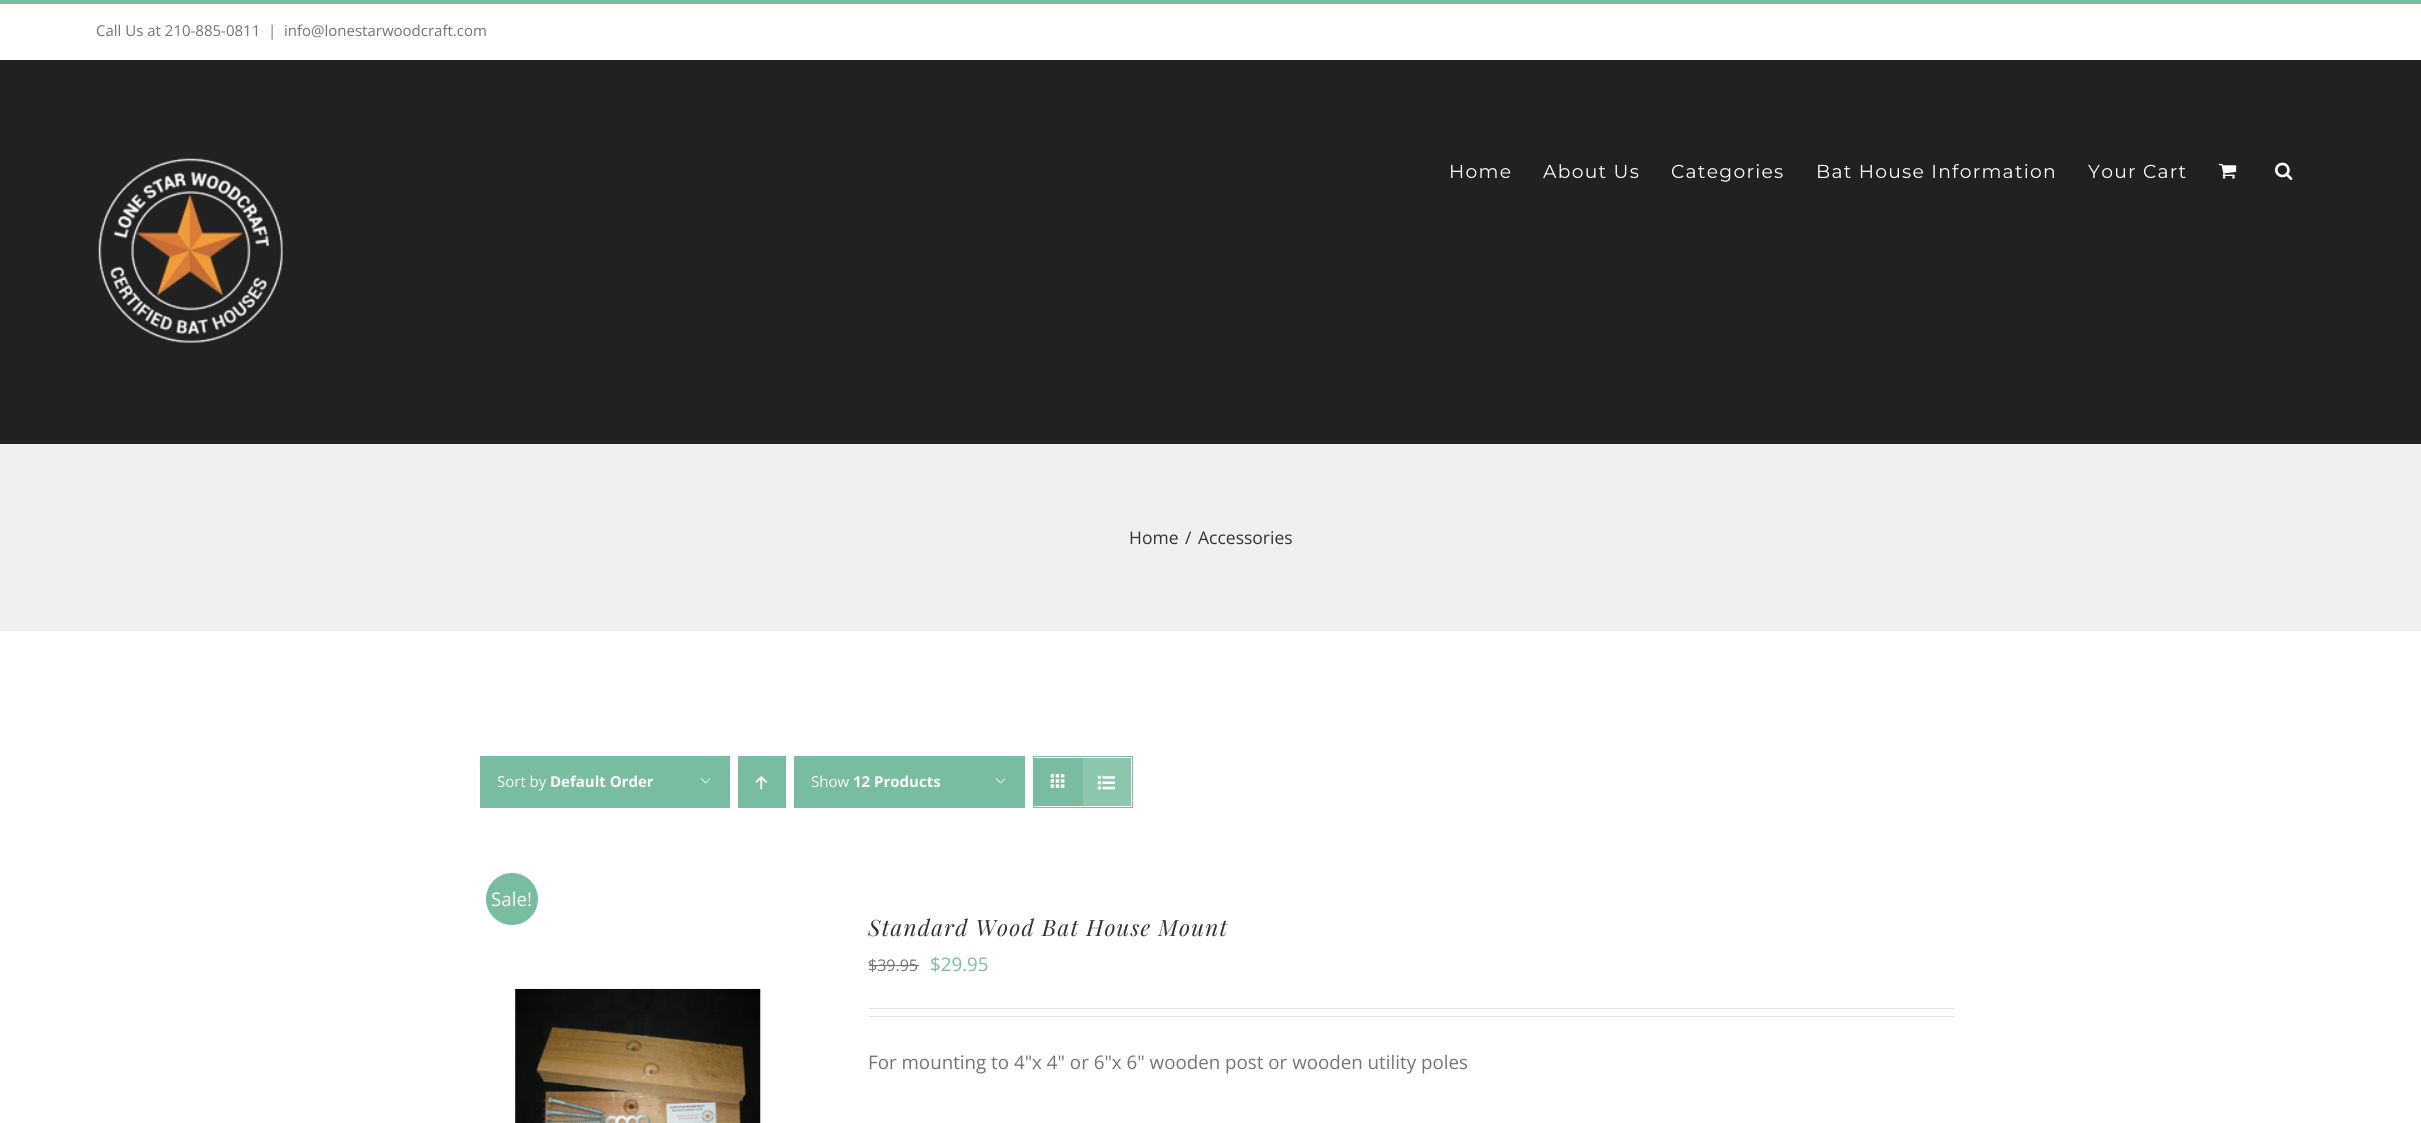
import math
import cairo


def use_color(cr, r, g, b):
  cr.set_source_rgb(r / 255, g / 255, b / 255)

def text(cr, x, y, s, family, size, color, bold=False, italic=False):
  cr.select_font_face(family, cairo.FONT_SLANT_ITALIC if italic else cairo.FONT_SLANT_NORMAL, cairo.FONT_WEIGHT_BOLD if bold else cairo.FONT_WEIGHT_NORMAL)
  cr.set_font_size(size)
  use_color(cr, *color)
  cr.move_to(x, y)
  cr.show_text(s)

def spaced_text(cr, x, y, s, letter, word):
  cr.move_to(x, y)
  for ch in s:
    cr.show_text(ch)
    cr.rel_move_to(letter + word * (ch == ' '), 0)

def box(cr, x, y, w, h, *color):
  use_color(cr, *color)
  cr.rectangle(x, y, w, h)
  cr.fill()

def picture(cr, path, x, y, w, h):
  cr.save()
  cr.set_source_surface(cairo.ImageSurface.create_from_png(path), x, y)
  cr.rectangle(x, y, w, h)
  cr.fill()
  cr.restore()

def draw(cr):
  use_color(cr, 255, 255, 255)
  cr.paint()
  box(cr, 0, 0, 2421, 4, 120, 188, 161)
  box(cr, 0, 60, 2421, 384, 33, 33, 33)
  picture(cr, "img_01.png", 98, 158, 185, 185)
  picture(cr, "img_02.png", 2218, 163, 19, 16)
  picture(cr, "img_03.png", 2275, 162, 18, 18)
  box(cr, 0, 444, 2421, 187, 240, 240, 240)
  box(cr, 480, 756, 250, 52, 120, 188, 161)
  picture(cr, "img_04.png", 700, 778, 11, 6)
  box(cr, 738, 756, 48, 52, 120, 188, 161)
  picture(cr, "img_05.png", 755, 776, 12, 14)
  box(cr, 794, 756, 231, 52, 120, 188, 161)
  picture(cr, "img_04.png", 995, 778, 11, 6)
  cr.rectangle(1033.5, 756.5, 99, 51)
  cr.set_line_width(1)
  cr.stroke()
  box(cr, 1034, 758, 49, 48, 120, 188, 161)
  picture(cr, "img_06.png", 1050, 774, 15, 14)
  box(cr, 1083, 758, 48, 48, 139, 198, 174)
  picture(cr, "img_07.png", 1097, 775, 18, 15)
  use_color(cr, 120, 188, 161)
  cr.arc(512, 899, 26, 0, 2 * math.pi)
  cr.fill()
  box(cr, 869, 965, 50, 1, 116, 116, 116)
  picture(cr, "img_08.png", 515, 988, 246, 135)
  box(cr, 869, 1008, 1085, 1, 224, 222, 222)
  box(cr, 869, 1016, 1085, 1, 224, 222, 222)
  text(cr, 96, 36, "Call Us at 210-885-0811", "Open Sans", 15, (116, 116, 116))
  text(cr, 268, 36, "|", "Open Sans", 15, (116, 116, 116))
  text(cr, 284, 36, "info@lonestarwoodcraft.com", "Open Sans", 15, (116, 116, 116))
  cr.select_font_face("Montserrat Thin")
  cr.set_font_size(18.75)
  use_color(cr, 255, 255, 255)
  spaced_text(cr, 1449, 178, "Home", 1.25, 0)
  spaced_text(cr, 1543, 178, "About Us", 1.25, 0)
  spaced_text(cr, 1671, 178, "Categories", 1.25, 0)
  spaced_text(cr, 1816, 178, "Bat House Information", 1.25, 0)
  spaced_text(cr, 2088, 178, "Your Cart", 1.25, 0)
  text(cr, 1129, 544, "Home", "Open Sans", 17.5, (51, 51, 51))
  text(cr, 1185, 544, "/", "Open Sans", 17.5, (51, 51, 51))
  text(cr, 1198, 544, "Accessories", "Open Sans", 17.5, (51, 51, 51))
  cr.save()
  cr.rectangle(498, 758, 166, 48)
  cr.clip()
  text(cr, 497, 787, "Sort by", "Open Sans", 15, (255, 255, 255))
  cr.restore()
  text(cr, 550, 787, "Default Order", "Open Sans", 15, (255, 255, 255), bold=True)
  text(cr, 811, 787, "Show", "Open Sans", 15, (255, 255, 255))
  text(cr, 853, 787, "12 Products", "Open Sans", 15, (255, 255, 255), bold=True)
  text(cr, 491, 906, "Sale!", "Open Sans", 18.75, (255, 255, 255))
  cr.select_font_face("Playfair Display", cairo.FONT_SLANT_ITALIC)
  cr.set_font_size(22.5)
  use_color(cr, 51, 51, 51)
  spaced_text(cr, 868, 936, "Standard Wood Bat House Mount", 1.25, 0)
  text(cr, 868, 971, "$39.95", "Open Sans", 16, (116, 116, 116))
  text(cr, 930, 971, "$29.95", "Open Sans", 18.75, (120, 188, 161))
  text(cr, 868, 1069, "For mounting to 4\"x 4\" or 6\"x 6\" wooden post or wooden utility poles", "Open Sans", 18.75, (116, 116, 116))


surface = cairo.ImageSurface(cairo.FORMAT_RGB24, 2421, 1123)
cr = cairo.Context(surface)
options = cairo.FontOptions()
options.set_hint_metrics(cairo.HINT_METRICS_OFF)
options.set_hint_style(cairo.HINT_STYLE_NONE)
cr.set_font_options(options)
cr.set_miter_limit(4)
draw(cr)
surface.write_to_png("out.png")
